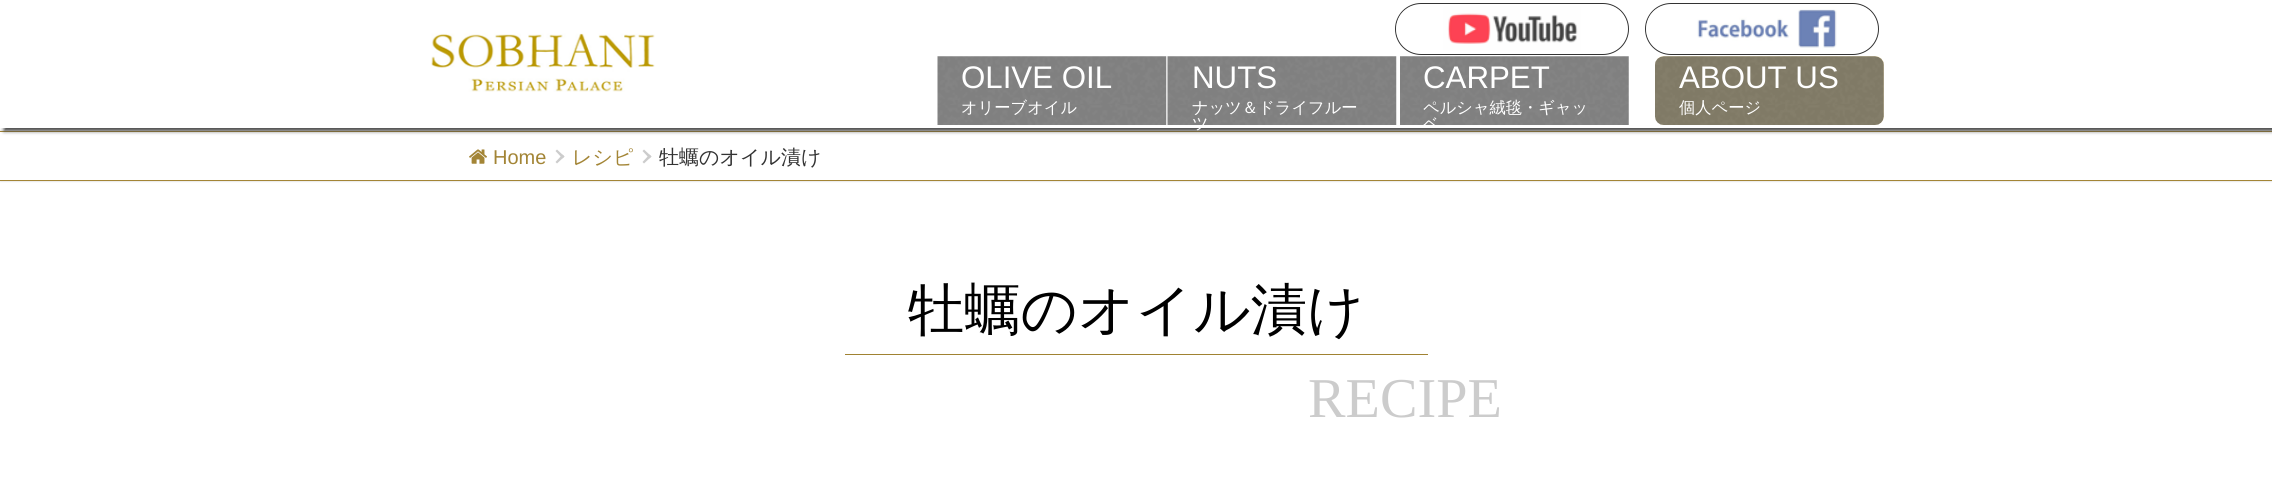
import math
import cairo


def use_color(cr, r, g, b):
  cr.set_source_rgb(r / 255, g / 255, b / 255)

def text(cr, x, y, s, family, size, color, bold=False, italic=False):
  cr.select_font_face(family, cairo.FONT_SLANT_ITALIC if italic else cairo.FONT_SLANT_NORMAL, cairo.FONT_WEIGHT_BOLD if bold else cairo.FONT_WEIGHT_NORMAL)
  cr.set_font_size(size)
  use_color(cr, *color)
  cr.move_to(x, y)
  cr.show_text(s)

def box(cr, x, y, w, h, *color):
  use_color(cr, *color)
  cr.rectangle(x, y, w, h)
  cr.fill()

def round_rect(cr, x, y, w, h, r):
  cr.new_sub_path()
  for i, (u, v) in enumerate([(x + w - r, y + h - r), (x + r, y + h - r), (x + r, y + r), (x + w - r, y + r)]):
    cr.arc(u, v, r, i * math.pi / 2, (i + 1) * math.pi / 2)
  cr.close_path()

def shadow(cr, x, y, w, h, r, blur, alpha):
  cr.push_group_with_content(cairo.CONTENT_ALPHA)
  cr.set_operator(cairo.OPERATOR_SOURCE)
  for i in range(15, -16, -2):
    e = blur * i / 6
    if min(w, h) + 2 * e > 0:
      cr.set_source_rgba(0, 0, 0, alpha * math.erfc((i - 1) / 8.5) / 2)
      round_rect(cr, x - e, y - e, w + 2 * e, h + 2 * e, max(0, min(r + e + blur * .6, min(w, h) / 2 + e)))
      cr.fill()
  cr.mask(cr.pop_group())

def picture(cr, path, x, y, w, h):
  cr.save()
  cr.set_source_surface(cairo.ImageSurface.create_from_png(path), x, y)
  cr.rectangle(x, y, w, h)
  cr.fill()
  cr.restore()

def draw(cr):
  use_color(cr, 255, 255, 255)
  cr.paint()
  use_color(cr, 0, 0, 0)
  shadow(cr, 0, 131, 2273, 50, 0, 1, 0.2)
  box(cr, 0, 132, 2272, 48, 255, 255, 255)
  box(cr, 0, 131, 2272, 1, 163, 133, 54)
  use_color(cr, 68, 68, 68)
  shadow(cr, 4, 4, 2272, 127, 0, 2, 1)
  box(cr, 0, 0, 2272, 128, 255, 255, 255)
  picture(cr, "img_01.png", 431, 33, 224, 59)
  round_rect(cr, 1395.5, 3.5, 233, 51, 25.5)
  use_color(cr, 51, 51, 51)
  cr.set_line_width(1)
  cr.stroke()
  picture(cr, "img_02.png", 1396, 6, 232, 45)
  round_rect(cr, 1645.5, 3.5, 233, 51, 25.5)
  cr.stroke()
  picture(cr, "img_03.png", 1646, 6, 232, 45)
  picture(cr, "img_04.png", 937, 56, 230, 69)
  picture(cr, "img_05.png", 1167, 56, 230, 69)
  picture(cr, "img_06.png", 1400, 56, 229, 69)
  use_color(cr, 255, 242, 203)
  round_rect(cr, 1655, 56, 229, 69, 9)
  cr.fill()
  picture(cr, "img_07.png", 1655, 56, 229, 69)
  box(cr, 0, 180, 2272, 1, 163, 133, 54)
  picture(cr, "img_08.png", 469, 149, 18, 15)
  use_color(cr, 204, 204, 204)
  cr.new_path()
  cr.move_to(557, 149.5)
  cr.line_to(564.5, 156.5)
  cr.line_to(562.5, 158.5)
  cr.line_to(555.5, 151)
  cr.close_path()
  cr.fill()
  cr.new_path()
  cr.move_to(562.5, 154.5)
  cr.line_to(564.5, 156.5)
  cr.line_to(557, 163.5)
  cr.line_to(555.5, 162)
  cr.close_path()
  cr.fill()
  cr.new_path()
  cr.move_to(644, 149.5)
  cr.line_to(651.5, 156.5)
  cr.line_to(649.5, 158.5)
  cr.line_to(642.5, 151)
  cr.close_path()
  cr.fill()
  cr.new_path()
  cr.move_to(649.5, 154.5)
  cr.line_to(651.5, 156.5)
  cr.line_to(644, 163.5)
  cr.line_to(642.5, 162)
  cr.close_path()
  cr.fill()
  box(cr, 845, 354, 583, 1, 160, 130, 50)
  text(cr, 961, 88, "OLIVE OIL", "Liberation Sans", 31.25, (255, 255, 255))
  text(cr, 961, 113, "オリーブオイル", "WenQuanYi Zen Hei Medium", 16.25, (255, 255, 255))
  text(cr, 1192, 88, "NUTS", "Liberation Sans", 31.25, (255, 255, 255))
  text(cr, 1192, 113, "ナッツ＆ドライフルー", "WenQuanYi Zen Hei Medium", 16.25, (255, 255, 255))
  text(cr, 1192, 129, "ツ", "WenQuanYi Zen Hei Medium", 16.25, (255, 255, 255))
  text(cr, 1423, 88, "CARPET", "Liberation Sans", 31.25, (255, 255, 255))
  text(cr, 1423, 113, "ペルシャ絨毯・ギャッ", "WenQuanYi Zen Hei Medium", 16.25, (255, 255, 255))
  text(cr, 1423, 129, "ベ", "WenQuanYi Zen Hei Medium", 16.25, (255, 255, 255))
  text(cr, 1679, 88, "ABOUT US", "Liberation Sans", 31.25, (255, 255, 255))
  text(cr, 1679, 113, "個人ページ", "WenQuanYi Zen Hei Medium", 16.25, (255, 255, 255))
  text(cr, 493, 164, "Home", "Liberation Sans", 20, (163, 133, 54))
  text(cr, 572, 164, "レシピ", "WenQuanYi Zen Hei Medium", 20, (163, 133, 54))
  text(cr, 659, 164, "牡蠣のオイル漬け", "WenQuanYi Zen Hei Medium", 20, (51, 51, 51))
  text(cr, 908, 329, "牡蠣のオイル漬け", "WenQuanYi Zen Hei Medium", 56.25, (0, 0, 0))
  text(cr, 1308, 417, "RECIPE", "Liberation Serif", 56.25, (204, 204, 204))


surface = cairo.ImageSurface(cairo.FORMAT_RGB24, 2272, 486)
cr = cairo.Context(surface)
options = cairo.FontOptions()
options.set_hint_metrics(cairo.HINT_METRICS_OFF)
options.set_hint_style(cairo.HINT_STYLE_NONE)
cr.set_font_options(options)
cr.set_miter_limit(4)
draw(cr)
surface.write_to_png("out.png")
